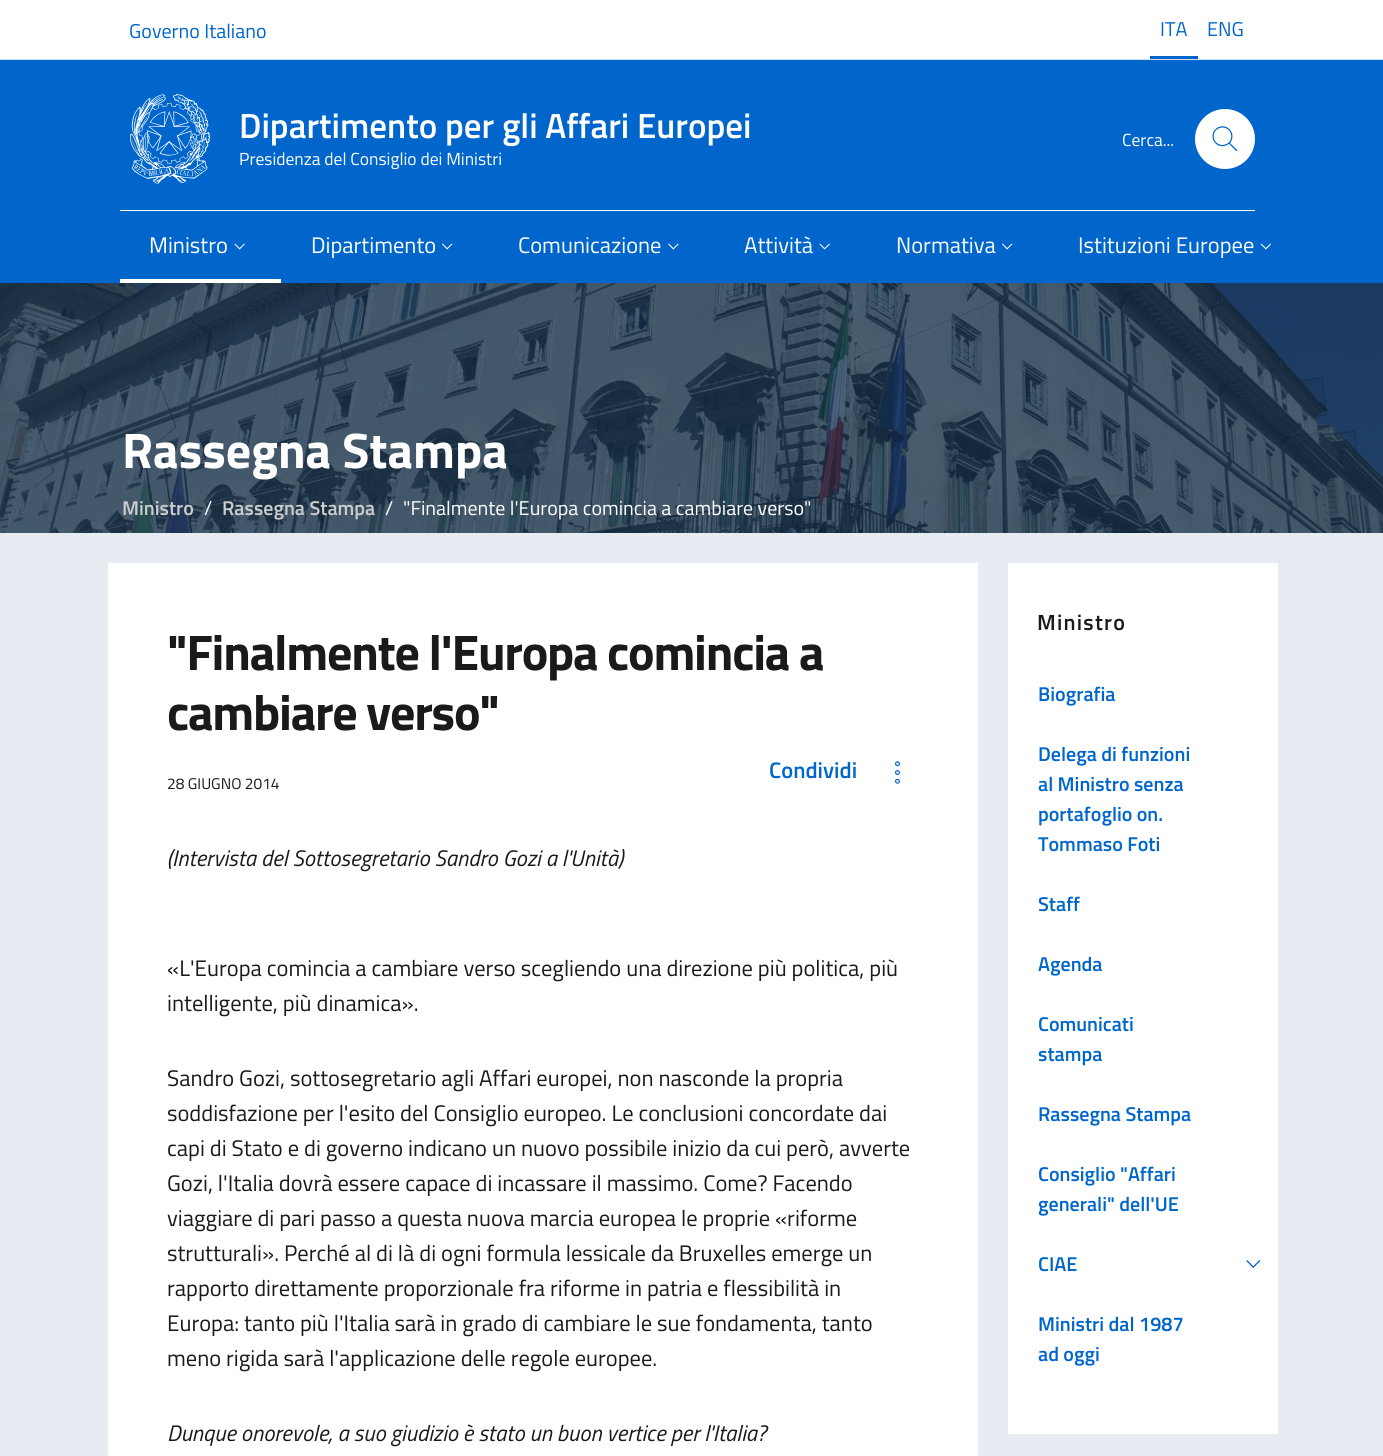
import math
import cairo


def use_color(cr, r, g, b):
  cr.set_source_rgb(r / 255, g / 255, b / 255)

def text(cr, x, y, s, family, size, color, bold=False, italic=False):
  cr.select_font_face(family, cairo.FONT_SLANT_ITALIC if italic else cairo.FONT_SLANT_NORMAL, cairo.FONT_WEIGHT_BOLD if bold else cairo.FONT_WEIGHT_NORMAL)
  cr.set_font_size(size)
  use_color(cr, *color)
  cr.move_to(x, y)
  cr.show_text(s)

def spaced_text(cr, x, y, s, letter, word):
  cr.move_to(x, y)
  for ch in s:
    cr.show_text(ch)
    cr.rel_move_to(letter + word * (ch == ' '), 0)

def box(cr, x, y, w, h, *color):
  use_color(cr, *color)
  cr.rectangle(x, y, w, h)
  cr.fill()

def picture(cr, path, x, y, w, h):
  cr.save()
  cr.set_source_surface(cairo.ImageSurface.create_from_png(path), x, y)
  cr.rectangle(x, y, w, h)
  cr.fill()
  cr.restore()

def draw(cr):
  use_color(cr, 255, 255, 255)
  cr.paint()
  box(cr, 0, 59, 1383, 1, 204, 224, 245)
  box(cr, 1150, 56, 48, 3, 0, 102, 204)
  box(cr, 0, 60, 1383, 223, 0, 102, 204)
  picture(cr, "img_01.png", 130, 94, 80, 90)
  use_color(cr, 255, 255, 255)
  cr.arc(1225, 139, 30, 0, 2 * math.pi)
  cr.fill()
  picture(cr, "img_02.png", 1212, 126, 26, 26)
  box(cr, 120, 210, 1135, 1, 255, 255, 255)
  box(cr, 120, 279, 161, 4, 255, 255, 255)
  picture(cr, "img_03.png", 234, 243, 11, 7)
  picture(cr, "img_04.png", 442, 243, 11, 7)
  picture(cr, "img_05.png", 668, 243, 11, 7)
  picture(cr, "img_03.png", 819, 243, 11, 7)
  picture(cr, "img_04.png", 1002, 243, 11, 7)
  picture(cr, "img_06.png", 1260, 243, 11, 7)
  picture(cr, "img_07.png", 0, 283, 1383, 250)
  box(cr, 0, 533, 1383, 923, 230, 236, 242)
  box(cr, 108, 563, 870, 893, 255, 255, 255)
  picture(cr, "img_08.png", 895, 761, 5, 23)
  box(cr, 1008, 563, 270, 871, 255, 255, 255)
  picture(cr, "img_09.png", 1246, 1260, 15, 8)
  text(cr, 129, 38, "Governo Italiano", "Titillium Web", 20, (0, 102, 204))
  text(cr, 1160, 36, "ITA", "Titillium Web", 20, (0, 102, 204))
  text(cr, 1207, 36, "ENG", "Titillium Web", 20, (0, 102, 204))
  text(cr, 239, 138, "Dipartimento per gli Affari Europei", "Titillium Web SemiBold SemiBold", 35, (255, 255, 255))
  text(cr, 239, 165, "Presidenza del Consiglio dei Ministri", "Titillium Web", 17.5, (255, 255, 255))
  text(cr, 1122, 146, "Cerca...", "Titillium Web", 17.5, (255, 255, 255))
  text(cr, 149, 253, "Ministro", "Titillium Web", 22.5, (255, 255, 255))
  text(cr, 311, 253, "Dipartimento", "Titillium Web", 22.5, (255, 255, 255))
  text(cr, 518, 253, "Comunicazione", "Titillium Web", 22.5, (255, 255, 255))
  text(cr, 744, 253, "Attività", "Titillium Web", 22.5, (255, 255, 255))
  text(cr, 896, 253, "Normativa", "Titillium Web", 22.5, (255, 255, 255))
  text(cr, 1078, 253, "Istituzioni Europee", "Titillium Web", 22.5, (255, 255, 255))
  text(cr, 122, 468, "Rassegna Stampa", "Titillium Web", 50, (255, 255, 255), bold=True)
  text(cr, 122, 515, "Ministro", "Titillium Web SemiBold SemiBold", 20, (204, 204, 204))
  text(cr, 204, 515, "/", "Titillium Web", 20, (255, 255, 255))
  text(cr, 222, 515, "Rassegna Stampa", "Titillium Web SemiBold SemiBold", 20, (204, 204, 204))
  text(cr, 385, 515, "/", "Titillium Web", 20, (255, 255, 255))
  text(cr, 403, 515, "\"Finalmente l'Europa comincia a cambiare verso\"", "Titillium Web", 20, (255, 255, 255))
  cr.select_font_face("Titillium Web", cairo.FONT_SLANT_NORMAL, cairo.FONT_WEIGHT_BOLD)
  cr.set_font_size(50)
  use_color(cr, 26, 26, 26)
  spaced_text(cr, 167, 670, "\"Finalmente l'Europa comincia a", -1.25, 0)
  spaced_text(cr, 167, 730, "cambiare verso\"", -1.25, 0)
  text(cr, 769, 778, "Condividi", "Titillium Web SemiBold SemiBold", 22.5, (0, 102, 204))
  text(cr, 167, 789, "28 GIUGNO 2014", "Titillium Web", 15.5, (26, 26, 26))
  text(cr, 167, 866, "(Intervista del Sottosegretario Sandro Gozi a l'Unità)", "Titillium Web", 22.5, (26, 26, 26), italic=True)
  text(cr, 167, 976, "«L'Europa comincia a cambiare verso scegliendo una direzione più politica, più", "Titillium Web", 22.5, (26, 26, 26))
  text(cr, 167, 1011, "intelligente, più dinamica».", "Titillium Web", 22.5, (26, 26, 26))
  text(cr, 167, 1086, "Sandro Gozi, sottosegretario agli Affari europei, non nasconde la propria", "Titillium Web", 22.5, (26, 26, 26))
  text(cr, 167, 1121, "soddisfazione per l'esito del Consiglio europeo. Le conclusioni concordate dai", "Titillium Web", 22.5, (26, 26, 26))
  text(cr, 167, 1156, "capi di Stato e di governo indicano un nuovo possibile inizio da cui però, avverte", "Titillium Web", 22.5, (26, 26, 26))
  text(cr, 167, 1191, "Gozi, l'Italia dovrà essere capace di incassare il massimo. Come? Facendo", "Titillium Web", 22.5, (26, 26, 26))
  text(cr, 167, 1226, "viaggiare di pari passo a questa nuova marcia europea le proprie «riforme", "Titillium Web", 22.5, (26, 26, 26))
  text(cr, 167, 1261, "strutturali». Perché al di là di ogni formula lessicale da Bruxelles emerge un", "Titillium Web", 22.5, (26, 26, 26))
  text(cr, 167, 1296, "rapporto direttamente proporzionale fra riforme in patria e flessibilità in", "Titillium Web", 22.5, (26, 26, 26))
  text(cr, 167, 1331, "Europa: tanto più l'Italia sarà in grado di cambiare le sue fondamenta, tanto", "Titillium Web", 22.5, (26, 26, 26))
  text(cr, 167, 1366, "meno rigida sarà l'applicazione delle regole europee.", "Titillium Web", 22.5, (26, 26, 26))
  text(cr, 167, 1441, "Dunque onorevole, a suo giudizio è stato un buon vertice per l'Italia?", "Titillium Web", 22.5, (26, 26, 26), italic=True)
  cr.select_font_face("Titillium Web SemiBold SemiBold")
  cr.set_font_size(22)
  spaced_text(cr, 1037, 630, "Ministro", 1.25, 0)
  text(cr, 1038, 701, "Biografia", "Titillium Web SemiBold SemiBold", 20, (0, 102, 204))
  text(cr, 1038, 761, "Delega di funzioni", "Titillium Web SemiBold SemiBold", 20, (0, 102, 204))
  text(cr, 1038, 791, "al Ministro senza", "Titillium Web SemiBold SemiBold", 20, (0, 102, 204))
  text(cr, 1038, 821, "portafoglio on.", "Titillium Web SemiBold SemiBold", 20, (0, 102, 204))
  text(cr, 1038, 851, "Tommaso Foti", "Titillium Web SemiBold SemiBold", 20, (0, 102, 204))
  text(cr, 1038, 911, "Staff", "Titillium Web SemiBold SemiBold", 20, (0, 102, 204))
  text(cr, 1038, 971, "Agenda", "Titillium Web SemiBold SemiBold", 20, (0, 102, 204))
  text(cr, 1038, 1031, "Comunicati", "Titillium Web SemiBold SemiBold", 20, (0, 102, 204))
  text(cr, 1038, 1061, "stampa", "Titillium Web SemiBold SemiBold", 20, (0, 102, 204))
  text(cr, 1038, 1121, "Rassegna Stampa", "Titillium Web SemiBold SemiBold", 20, (0, 102, 204))
  text(cr, 1038, 1181, "Consiglio \"Affari", "Titillium Web SemiBold SemiBold", 20, (0, 102, 204))
  text(cr, 1038, 1211, "generali\" dell'UE", "Titillium Web SemiBold SemiBold", 20, (0, 102, 204))
  text(cr, 1038, 1271, "CIAE", "Titillium Web SemiBold SemiBold", 20, (0, 102, 204))
  text(cr, 1038, 1331, "Ministri dal 1987", "Titillium Web SemiBold SemiBold", 20, (0, 102, 204))
  text(cr, 1038, 1361, "ad oggi", "Titillium Web SemiBold SemiBold", 20, (0, 102, 204))


surface = cairo.ImageSurface(cairo.FORMAT_RGB24, 1383, 1456)
cr = cairo.Context(surface)
options = cairo.FontOptions()
options.set_hint_metrics(cairo.HINT_METRICS_OFF)
options.set_hint_style(cairo.HINT_STYLE_NONE)
cr.set_font_options(options)
cr.set_miter_limit(4)
draw(cr)
surface.write_to_png("out.png")
